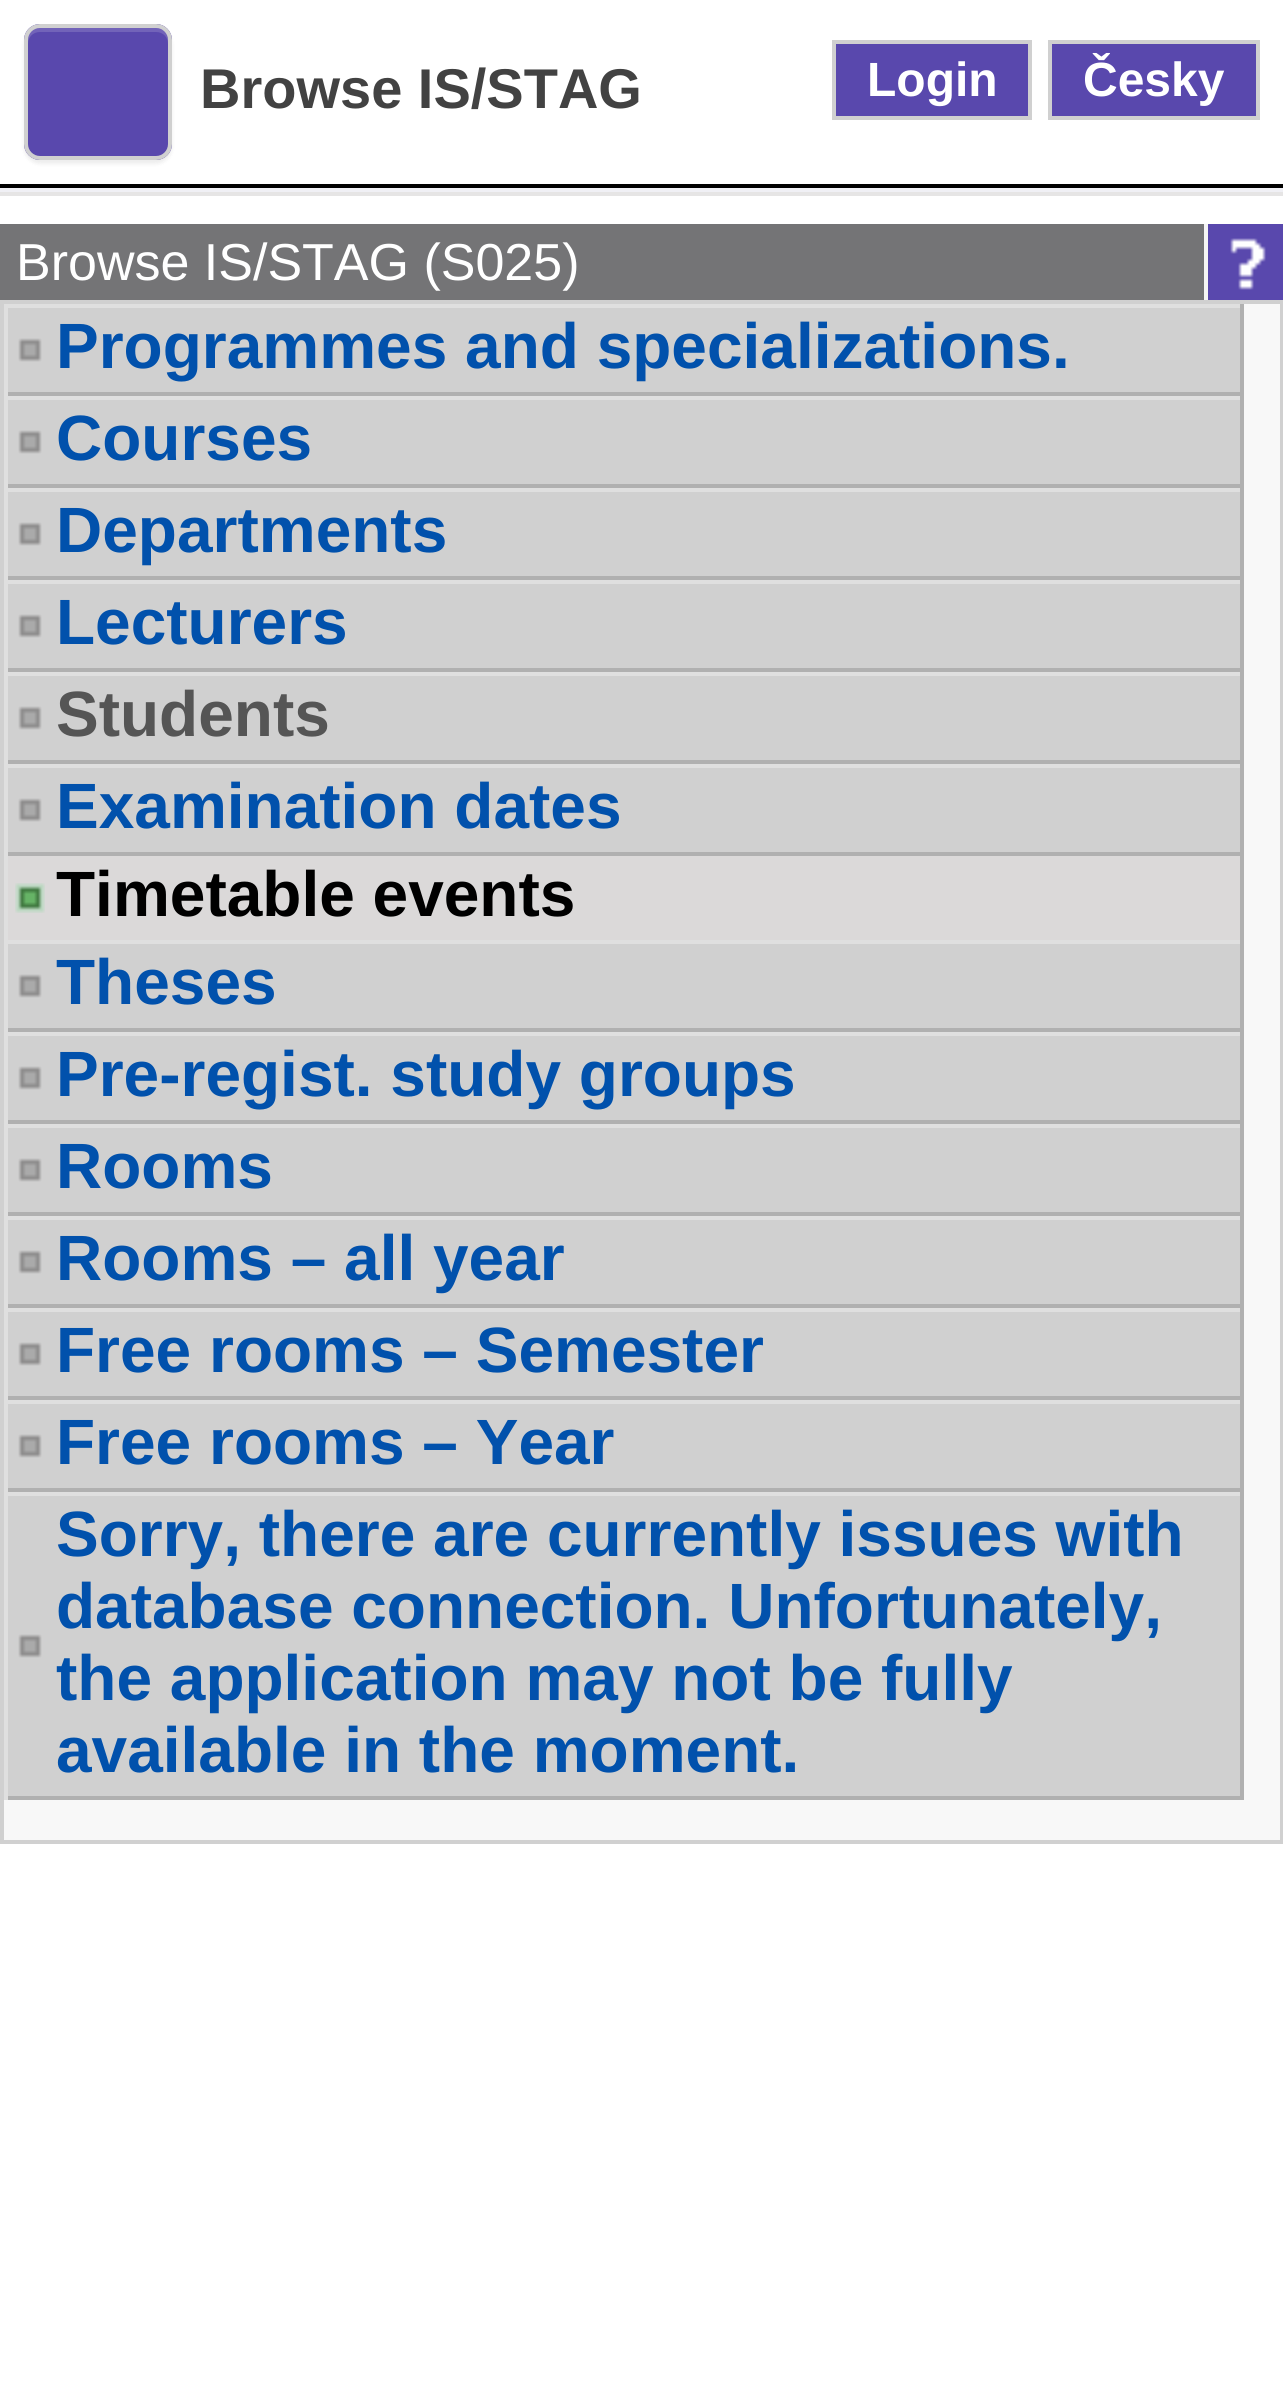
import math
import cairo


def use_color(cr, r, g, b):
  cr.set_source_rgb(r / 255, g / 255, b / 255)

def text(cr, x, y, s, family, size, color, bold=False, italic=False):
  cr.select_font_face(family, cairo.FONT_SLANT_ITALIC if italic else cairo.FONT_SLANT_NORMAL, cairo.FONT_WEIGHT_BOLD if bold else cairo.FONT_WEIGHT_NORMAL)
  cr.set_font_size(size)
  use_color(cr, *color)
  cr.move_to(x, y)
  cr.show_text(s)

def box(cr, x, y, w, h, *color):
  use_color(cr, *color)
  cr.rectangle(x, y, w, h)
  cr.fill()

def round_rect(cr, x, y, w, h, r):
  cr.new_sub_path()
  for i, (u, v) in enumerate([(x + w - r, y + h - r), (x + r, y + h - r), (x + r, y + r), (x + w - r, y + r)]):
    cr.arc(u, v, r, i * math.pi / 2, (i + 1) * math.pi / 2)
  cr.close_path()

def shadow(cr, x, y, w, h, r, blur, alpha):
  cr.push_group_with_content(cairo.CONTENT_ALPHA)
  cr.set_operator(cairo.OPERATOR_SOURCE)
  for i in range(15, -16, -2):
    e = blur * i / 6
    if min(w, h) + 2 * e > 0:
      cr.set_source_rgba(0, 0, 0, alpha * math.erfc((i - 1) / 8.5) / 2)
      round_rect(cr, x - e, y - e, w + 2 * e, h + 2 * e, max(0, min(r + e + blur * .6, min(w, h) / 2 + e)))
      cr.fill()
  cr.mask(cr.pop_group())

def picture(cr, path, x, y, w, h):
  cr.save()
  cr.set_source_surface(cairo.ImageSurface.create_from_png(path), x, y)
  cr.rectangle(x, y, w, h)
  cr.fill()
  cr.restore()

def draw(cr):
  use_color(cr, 255, 255, 255)
  cr.paint()
  box(cr, 0, 184, 1283, 4, 0, 0, 0)
  use_color(cr, 0, 0, 0)
  shadow(cr, 24, 28, 148, 136, 16, 2, 0.07)
  use_color(cr, 89, 72, 173)
  round_rect(cr, 24, 24, 148, 136, 16)
  cr.fill()
  use_color(cr, 114, 99, 185)
  cr.new_path()
  cr.move_to(40, 32)
  cr.line_to(156, 32)
  cr.curve_to(163, 32, 168, 37, 168, 44)
  cr.line_to(168, 40)
  cr.curve_to(168, 33, 163, 28, 156, 28)
  cr.line_to(40, 28)
  cr.curve_to(33, 28, 28, 33, 28, 40)
  cr.line_to(28, 44)
  cr.curve_to(28, 37, 33, 32, 40, 32)
  cr.close_path()
  cr.fill()
  round_rect(cr, 26, 26, 144, 132, 14)
  use_color(cr, 208, 208, 208)
  cr.set_line_width(4)
  cr.stroke()
  use_color(cr, 89, 72, 173)
  cr.rectangle(834, 42, 196, 76)
  cr.fill_preserve()
  use_color(cr, 208, 208, 208)
  cr.stroke()
  use_color(cr, 89, 72, 173)
  cr.rectangle(1050, 42, 208, 76)
  cr.fill_preserve()
  use_color(cr, 208, 208, 208)
  cr.stroke()
  box(cr, 0, 188, 1283, 4, 240, 240, 245)
  box(cr, 0, 192, 1283, 4, 230, 229, 229)
  box(cr, 0, 224, 1204, 76, 116, 116, 118)
  box(cr, 1204, 224, 4, 76, 245, 245, 245)
  picture(cr, "img_01.png", 1208, 224, 75, 76)
  use_color(cr, 248, 248, 248)
  cr.rectangle(2, 302, 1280, 1540)
  cr.fill_preserve()
  use_color(cr, 208, 208, 208)
  cr.stroke()
  box(cr, 8, 308, 1232, 84, 208, 208, 208)
  picture(cr, "img_02.png", 18, 338, 24, 24)
  box(cr, 4, 304, 1240, 4, 223, 223, 223)
  box(cr, 1240, 304, 4, 92, 176, 176, 176)
  box(cr, 4, 392, 1240, 4, 176, 176, 176)
  box(cr, 4, 304, 4, 92, 223, 223, 223)
  box(cr, 8, 400, 1232, 84, 208, 208, 208)
  picture(cr, "img_02.png", 18, 430, 24, 24)
  box(cr, 4, 396, 1240, 4, 223, 223, 223)
  box(cr, 1240, 396, 4, 92, 176, 176, 176)
  box(cr, 4, 484, 1240, 4, 176, 176, 176)
  box(cr, 4, 396, 4, 92, 223, 223, 223)
  box(cr, 8, 492, 1232, 84, 208, 208, 208)
  picture(cr, "img_02.png", 18, 522, 24, 24)
  box(cr, 4, 488, 1240, 4, 223, 223, 223)
  box(cr, 1240, 488, 4, 92, 176, 176, 176)
  box(cr, 4, 576, 1240, 4, 176, 176, 176)
  box(cr, 4, 488, 4, 92, 223, 223, 223)
  box(cr, 8, 584, 1232, 84, 208, 208, 208)
  picture(cr, "img_02.png", 18, 614, 24, 24)
  box(cr, 4, 580, 1240, 4, 223, 223, 223)
  box(cr, 1240, 580, 4, 92, 176, 176, 176)
  box(cr, 4, 668, 1240, 4, 176, 176, 176)
  box(cr, 4, 580, 4, 92, 223, 223, 223)
  box(cr, 8, 676, 1232, 84, 208, 208, 208)
  picture(cr, "img_02.png", 18, 706, 24, 24)
  box(cr, 4, 672, 1240, 4, 223, 223, 223)
  box(cr, 1240, 672, 4, 92, 176, 176, 176)
  box(cr, 4, 760, 1240, 4, 176, 176, 176)
  box(cr, 4, 672, 4, 92, 223, 223, 223)
  box(cr, 8, 768, 1232, 84, 208, 208, 208)
  picture(cr, "img_02.png", 18, 798, 24, 24)
  box(cr, 4, 764, 1240, 4, 223, 223, 223)
  box(cr, 1240, 764, 4, 176, 176, 176, 176)
  box(cr, 4, 852, 1240, 4, 176, 176, 176)
  box(cr, 4, 764, 4, 176, 223, 223, 223)
  box(cr, 8, 856, 1232, 84, 219, 217, 217)
  picture(cr, "img_03.png", 15, 883, 30, 30)
  box(cr, 8, 944, 1232, 84, 208, 208, 208)
  picture(cr, "img_02.png", 18, 974, 24, 24)
  box(cr, 4, 940, 1240, 4, 223, 223, 223)
  box(cr, 1240, 940, 4, 92, 176, 176, 176)
  box(cr, 4, 1028, 1240, 4, 176, 176, 176)
  box(cr, 4, 940, 4, 92, 223, 223, 223)
  box(cr, 8, 1036, 1232, 84, 208, 208, 208)
  picture(cr, "img_02.png", 18, 1066, 24, 24)
  box(cr, 4, 1032, 1240, 4, 223, 223, 223)
  box(cr, 1240, 1032, 4, 92, 176, 176, 176)
  box(cr, 4, 1120, 1240, 4, 176, 176, 176)
  box(cr, 4, 1032, 4, 92, 223, 223, 223)
  box(cr, 8, 1128, 1232, 84, 208, 208, 208)
  picture(cr, "img_02.png", 18, 1158, 24, 24)
  box(cr, 4, 1124, 1240, 4, 223, 223, 223)
  box(cr, 1240, 1124, 4, 92, 176, 176, 176)
  box(cr, 4, 1212, 1240, 4, 176, 176, 176)
  box(cr, 4, 1124, 4, 92, 223, 223, 223)
  box(cr, 8, 1220, 1232, 84, 208, 208, 208)
  picture(cr, "img_02.png", 18, 1250, 24, 24)
  box(cr, 4, 1216, 1240, 4, 223, 223, 223)
  box(cr, 1240, 1216, 4, 92, 176, 176, 176)
  box(cr, 4, 1304, 1240, 4, 176, 176, 176)
  box(cr, 4, 1216, 4, 92, 223, 223, 223)
  box(cr, 8, 1312, 1232, 84, 208, 208, 208)
  picture(cr, "img_02.png", 18, 1342, 24, 24)
  box(cr, 4, 1308, 1240, 4, 223, 223, 223)
  box(cr, 1240, 1308, 4, 92, 176, 176, 176)
  box(cr, 4, 1396, 1240, 4, 176, 176, 176)
  box(cr, 4, 1308, 4, 92, 223, 223, 223)
  box(cr, 8, 1404, 1232, 84, 208, 208, 208)
  picture(cr, "img_02.png", 18, 1434, 24, 24)
  box(cr, 4, 1400, 1240, 4, 223, 223, 223)
  box(cr, 1240, 1400, 4, 92, 176, 176, 176)
  box(cr, 4, 1488, 1240, 4, 176, 176, 176)
  box(cr, 4, 1400, 4, 92, 223, 223, 223)
  box(cr, 8, 1496, 1232, 300, 208, 208, 208)
  picture(cr, "img_02.png", 18, 1634, 24, 24)
  box(cr, 4, 1492, 1240, 4, 223, 223, 223)
  box(cr, 1240, 1492, 4, 308, 176, 176, 176)
  box(cr, 4, 1796, 1240, 4, 176, 176, 176)
  box(cr, 4, 1492, 4, 308, 223, 223, 223)
  text(cr, 200, 108, "Browse IS/STAG", "Liberation Sans", 56, (66, 66, 66), bold=True)
  text(cr, 867, 96, "Login", "Liberation Sans", 48, (255, 255, 255), bold=True)
  text(cr, 1083, 96, "Česky", "Liberation Sans", 48, (255, 255, 255), bold=True)
  text(cr, 16, 280, "Browse IS/STAG (S025)", "Liberation Sans", 52, (255, 255, 255))
  text(cr, 56, 368, "Programmes and specializations.", "Liberation Sans", 64, (1, 81, 172), bold=True)
  text(cr, 56, 460, "Courses", "Liberation Sans", 64, (1, 81, 172), bold=True)
  text(cr, 56, 552, "Departments", "Liberation Sans", 64, (1, 81, 172), bold=True)
  text(cr, 56, 644, "Lecturers", "Liberation Sans", 64, (1, 81, 172), bold=True)
  text(cr, 56, 736, "Students", "Liberation Sans", 64, (85, 85, 85), bold=True)
  text(cr, 56, 828, "Examination dates", "Liberation Sans", 64, (1, 81, 172), bold=True)
  text(cr, 56, 916, "Timetable events", "Liberation Sans", 64, (0, 0, 0), bold=True)
  text(cr, 56, 1004, "Theses", "Liberation Sans", 64, (1, 81, 172), bold=True)
  text(cr, 56, 1096, "Pre-regist. study groups", "Liberation Sans", 64, (1, 81, 172), bold=True)
  text(cr, 56, 1188, "Rooms", "Liberation Sans", 64, (1, 81, 172), bold=True)
  text(cr, 56, 1280, "Rooms – all year", "Liberation Sans", 64, (1, 81, 172), bold=True)
  text(cr, 56, 1372, "Free rooms – Semester", "Liberation Sans", 64, (1, 81, 172), bold=True)
  text(cr, 56, 1464, "Free rooms – Year", "Liberation Sans", 64, (1, 81, 172), bold=True)
  text(cr, 56, 1556, "Sorry, there are currently issues with", "Liberation Sans", 64, (1, 81, 172), bold=True)
  text(cr, 56, 1628, "database connection. Unfortunately,", "Liberation Sans", 64, (1, 81, 172), bold=True)
  text(cr, 56, 1700, "the application may not be fully", "Liberation Sans", 64, (1, 81, 172), bold=True)
  text(cr, 56, 1772, "available in the moment.", "Liberation Sans", 64, (1, 81, 172), bold=True)


surface = cairo.ImageSurface(cairo.FORMAT_RGB24, 1283, 2403)
cr = cairo.Context(surface)
options = cairo.FontOptions()
options.set_hint_metrics(cairo.HINT_METRICS_OFF)
options.set_hint_style(cairo.HINT_STYLE_NONE)
cr.set_font_options(options)
cr.set_miter_limit(4)
draw(cr)
surface.write_to_png("out.png")
